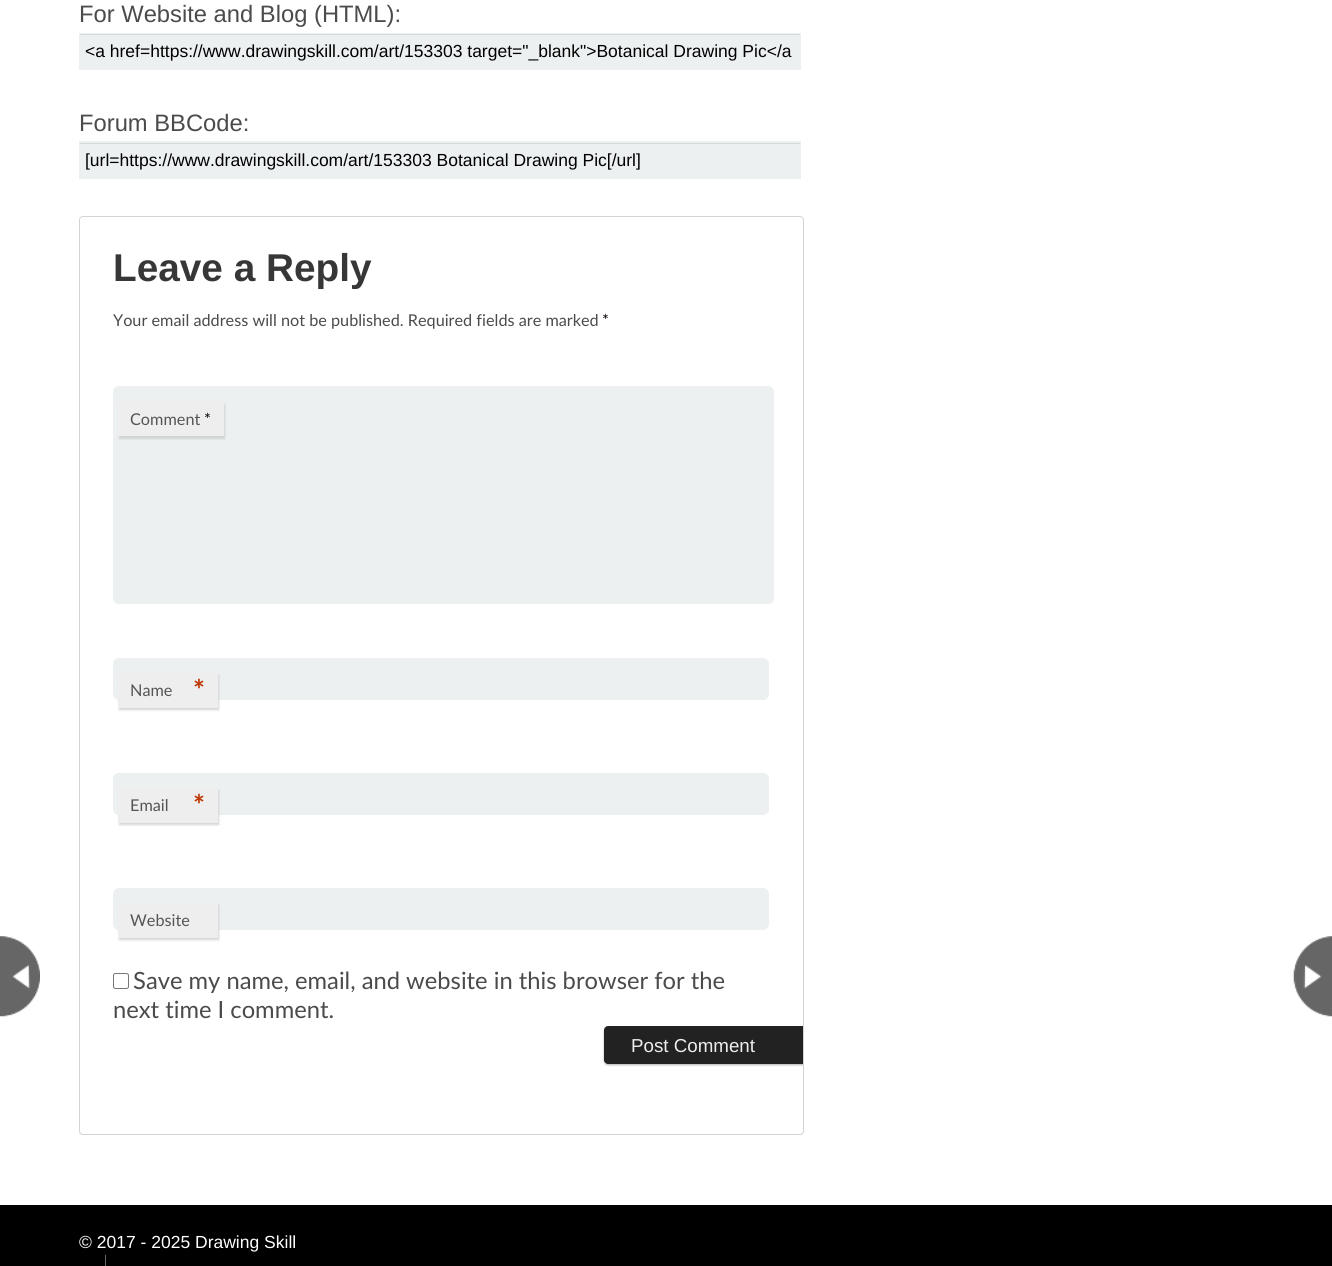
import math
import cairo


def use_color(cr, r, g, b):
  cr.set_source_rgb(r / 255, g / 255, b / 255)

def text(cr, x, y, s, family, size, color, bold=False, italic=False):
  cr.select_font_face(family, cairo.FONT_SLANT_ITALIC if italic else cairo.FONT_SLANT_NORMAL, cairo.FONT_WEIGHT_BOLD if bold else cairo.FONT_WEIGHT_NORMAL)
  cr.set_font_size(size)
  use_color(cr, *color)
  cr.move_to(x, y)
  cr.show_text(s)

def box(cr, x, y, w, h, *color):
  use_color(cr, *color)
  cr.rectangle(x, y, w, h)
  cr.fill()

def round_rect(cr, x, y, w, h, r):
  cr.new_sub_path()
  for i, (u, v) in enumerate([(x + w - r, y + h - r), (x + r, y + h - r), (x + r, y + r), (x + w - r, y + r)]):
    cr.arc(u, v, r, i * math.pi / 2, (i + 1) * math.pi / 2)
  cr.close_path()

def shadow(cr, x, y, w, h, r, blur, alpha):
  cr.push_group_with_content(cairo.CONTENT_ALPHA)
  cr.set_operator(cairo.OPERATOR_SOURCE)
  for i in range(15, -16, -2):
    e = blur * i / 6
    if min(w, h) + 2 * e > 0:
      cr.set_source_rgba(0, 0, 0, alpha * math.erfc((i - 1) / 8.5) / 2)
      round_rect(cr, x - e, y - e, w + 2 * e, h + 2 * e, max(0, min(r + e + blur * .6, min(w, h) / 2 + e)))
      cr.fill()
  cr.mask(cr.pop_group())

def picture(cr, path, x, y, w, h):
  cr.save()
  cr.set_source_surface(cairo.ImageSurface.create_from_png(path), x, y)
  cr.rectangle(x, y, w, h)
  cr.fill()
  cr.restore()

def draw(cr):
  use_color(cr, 255, 255, 255)
  cr.paint()
  box(cr, 79, 33, 722, 37, 236, 240, 241)
  box(cr, 80, 34, 720, 1, 212, 216, 217)
  box(cr, 79, 141, 722, 38, 236, 240, 241)
  box(cr, 80, 143, 720, 1, 212, 216, 217)
  round_rect(cr, 79.5, 216.5, 724, 918, 3.5)
  use_color(cr, 211, 211, 211)
  cr.set_line_width(1)
  cr.stroke()
  use_color(cr, 236, 240, 241)
  round_rect(cr, 113.5, 386.5, 660, 217, 5.5)
  cr.fill_preserve()
  cr.stroke()
  use_color(cr, 204, 204, 204)
  shadow(cr, 119, 404, 106, 35, 0, 1, 0.8)
  box(cr, 118, 401, 106, 35, 238, 238, 238)
  use_color(cr, 236, 240, 241)
  round_rect(cr, 113.5, 658.5, 655, 41, 5.5)
  cr.fill_preserve()
  cr.stroke()
  use_color(cr, 204, 204, 204)
  shadow(cr, 119, 675, 100, 35, 0, 1, 0.8)
  box(cr, 118, 673, 100, 35, 238, 238, 238)
  use_color(cr, 236, 240, 241)
  round_rect(cr, 113.5, 773.5, 655, 41, 5.5)
  cr.fill_preserve()
  cr.stroke()
  use_color(cr, 204, 204, 204)
  shadow(cr, 119, 790, 100, 35, 0, 1, 0.8)
  box(cr, 118, 788, 100, 35, 238, 238, 238)
  use_color(cr, 236, 240, 241)
  round_rect(cr, 113.5, 888.5, 655, 41, 5.5)
  cr.fill_preserve()
  cr.stroke()
  use_color(cr, 204, 204, 204)
  shadow(cr, 119, 905, 100, 35, 0, 1, 0.8)
  box(cr, 118, 903, 100, 35, 238, 238, 238)
  round_rect(cr, 113.5, 973.5, 15, 15, 2)
  use_color(cr, 118, 118, 118)
  cr.stroke()
  cr.save()
  round_rect(cr, 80, 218, 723, 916, 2.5)
  cr.clip()
  use_color(cr, 0, 0, 0)
  shadow(cr, 604, 1028, 204, 37, 4, 1, 0.3)
  cr.restore()
  use_color(cr, 34, 34, 34)
  cr.new_path()
  cr.move_to(608, 1026)
  cr.line_to(803, 1026)
  cr.line_to(803, 1064)
  cr.line_to(608, 1064)
  cr.curve_to(606, 1064, 604, 1062, 604, 1060)
  cr.line_to(604, 1030)
  cr.curve_to(604, 1028, 606, 1026, 608, 1026)
  cr.close_path()
  cr.fill()
  picture(cr, "img_01.png", 0, 936, 40, 81)
  picture(cr, "img_02.png", 1293, 936, 39, 81)
  box(cr, 0, 1205, 1332, 61, 0, 0, 0)
  box(cr, 105, 1255, 1, 11, 105, 105, 105)
  text(cr, 79, 22, "For Website and Blog (HTML):", "Liberation Sans", 23.75, (75, 75, 76))
  text(cr, 85, 57, "<a href=https://www.drawingskill.com/art/153303 target=\"_blank\">Botanical Drawing Pic</a", "Liberation Sans", 17.5, (0, 0, 0))
  text(cr, 79, 131, "Forum BBCode:", "Liberation Sans", 23.75, (75, 75, 76))
  text(cr, 85, 166, "[url=https://www.drawingskill.com/art/153303 Botanical Drawing Pic[/url]", "Liberation Sans", 17.5, (0, 0, 0))
  text(cr, 113, 281, "Leave a Reply", "Liberation Sans", 38.75, (55, 55, 55), bold=True)
  text(cr, 113, 326, "Your email address will not be published. Required fields are marked", "Lato", 16.25, (75, 75, 76))
  text(cr, 602, 326, "*", "Lato", 16.25, (10, 0, 2))
  text(cr, 130, 425, "Comment", "Lato", 16.25, (85, 85, 85))
  text(cr, 204, 425, "*", "Lato", 16.25, (10, 0, 2))
  text(cr, 130, 696, "Name", "Lato", 16.25, (85, 85, 85))
  text(cr, 193, 700, "*", "Lato", 28, (189, 53, 0), bold=True)
  text(cr, 130, 811, "Email", "Lato", 16.25, (85, 85, 85))
  text(cr, 193, 815, "*", "Lato", 28, (189, 53, 0), bold=True)
  text(cr, 130, 926, "Website", "Lato", 16.25, (85, 85, 85))
  text(cr, 133, 989, "Save my name, email, and website in this browser for the", "Lato", 23.75, (75, 75, 76))
  text(cr, 113, 1018, "next time I comment.", "Lato", 23.75, (75, 75, 76))
  text(cr, 631, 1052, "Post Comment", "Liberation Sans", 18.75, (238, 238, 238))
  text(cr, 79, 1248, "© 2017 - 2025 Drawing Skill", "Liberation Sans", 17.5, (255, 255, 255))


surface = cairo.ImageSurface(cairo.FORMAT_RGB24, 1332, 1266)
cr = cairo.Context(surface)
options = cairo.FontOptions()
options.set_hint_metrics(cairo.HINT_METRICS_OFF)
options.set_hint_style(cairo.HINT_STYLE_NONE)
cr.set_font_options(options)
cr.set_miter_limit(4)
draw(cr)
surface.write_to_png("out.png")
